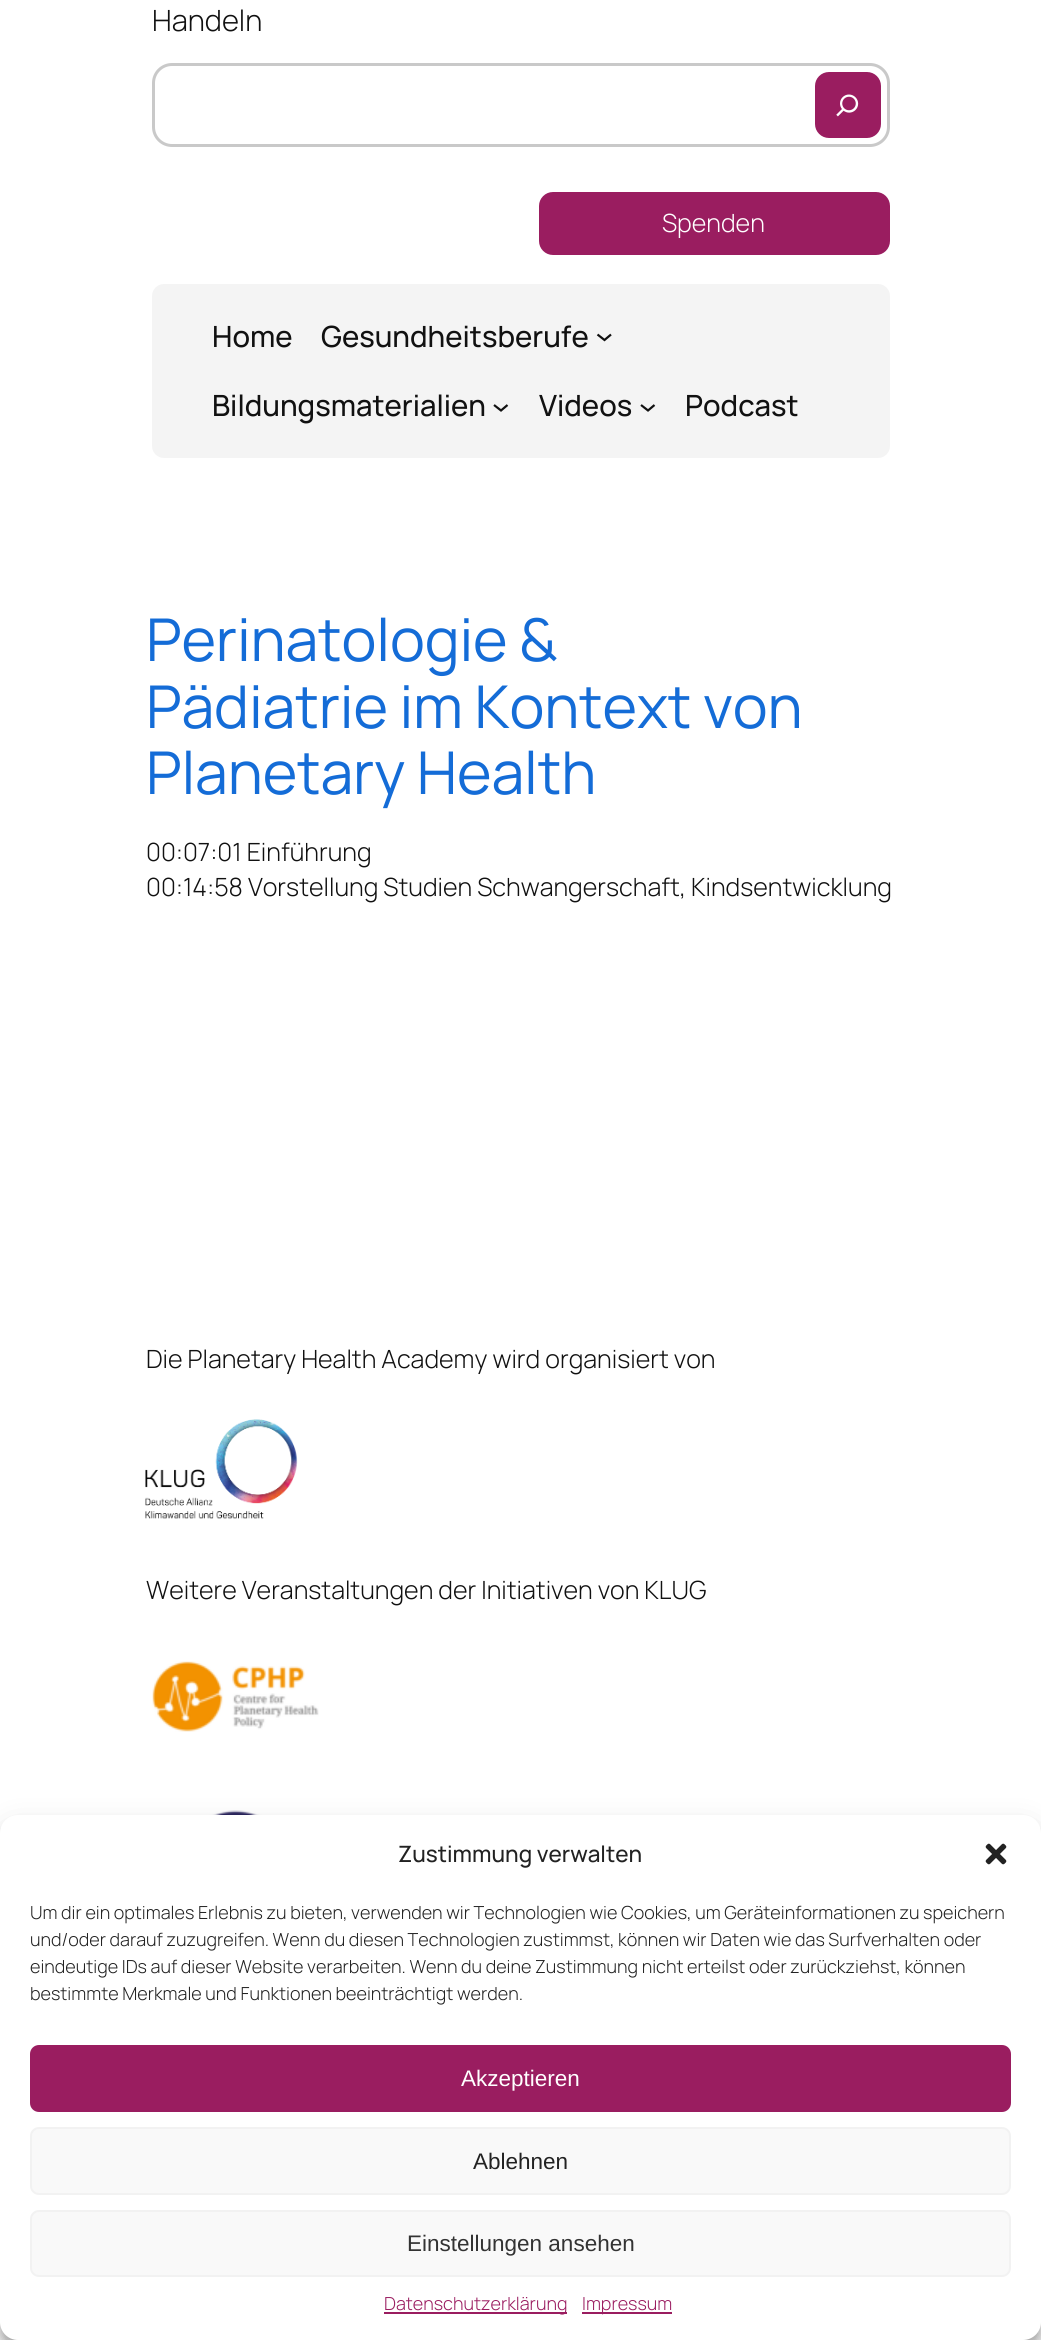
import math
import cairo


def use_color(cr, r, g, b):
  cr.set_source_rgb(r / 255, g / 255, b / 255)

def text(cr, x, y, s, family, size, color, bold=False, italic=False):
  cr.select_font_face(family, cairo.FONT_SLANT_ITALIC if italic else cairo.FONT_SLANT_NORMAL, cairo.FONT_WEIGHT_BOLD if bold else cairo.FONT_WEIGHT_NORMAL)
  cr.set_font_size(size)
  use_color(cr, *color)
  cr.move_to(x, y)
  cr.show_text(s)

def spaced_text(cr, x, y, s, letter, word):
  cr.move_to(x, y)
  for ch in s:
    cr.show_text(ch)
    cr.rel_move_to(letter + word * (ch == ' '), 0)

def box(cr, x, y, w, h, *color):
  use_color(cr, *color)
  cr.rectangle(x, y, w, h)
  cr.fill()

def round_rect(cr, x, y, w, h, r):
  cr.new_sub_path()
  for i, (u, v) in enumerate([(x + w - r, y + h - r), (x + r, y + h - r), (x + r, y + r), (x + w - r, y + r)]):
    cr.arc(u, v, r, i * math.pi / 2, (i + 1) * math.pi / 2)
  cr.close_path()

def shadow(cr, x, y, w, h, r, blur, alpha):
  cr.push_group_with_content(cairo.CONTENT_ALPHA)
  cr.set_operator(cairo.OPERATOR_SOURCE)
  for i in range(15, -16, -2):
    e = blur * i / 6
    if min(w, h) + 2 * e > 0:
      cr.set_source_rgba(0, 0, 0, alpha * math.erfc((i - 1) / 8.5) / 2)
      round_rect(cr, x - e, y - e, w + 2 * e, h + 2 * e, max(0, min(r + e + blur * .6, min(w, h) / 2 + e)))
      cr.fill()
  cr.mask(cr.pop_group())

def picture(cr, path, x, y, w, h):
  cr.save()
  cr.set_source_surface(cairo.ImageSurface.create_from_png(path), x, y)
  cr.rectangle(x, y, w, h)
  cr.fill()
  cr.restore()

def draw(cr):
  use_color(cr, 255, 255, 255)
  cr.paint()
  round_rect(cr, 153.5, 64.5, 735, 81, 18.5)
  use_color(cr, 201, 201, 201)
  cr.set_line_width(3)
  cr.stroke()
  use_color(cr, 154, 29, 96)
  round_rect(cr, 815, 72, 66, 66, 14)
  cr.fill()
  picture(cr, "img_01.png", 836, 94, 23, 23)
  round_rect(cr, 539, 192, 351, 63, 14)
  cr.fill()
  use_color(cr, 244, 244, 244)
  round_rect(cr, 152, 284, 738, 174, 12)
  cr.fill()
  cr.new_path()
  cr.move_to(597.5, 334.5)
  cr.line_to(604.5, 340)
  cr.line_to(611, 334.5)
  use_color(cr, 17, 17, 17)
  cr.set_line_width(2.2)
  cr.stroke()
  cr.new_path()
  cr.move_to(494, 405)
  cr.line_to(501, 410.5)
  cr.line_to(507.5, 405)
  cr.stroke()
  cr.new_path()
  cr.move_to(641, 405)
  cr.line_to(648, 410.5)
  cr.line_to(654.5, 405)
  cr.stroke()
  picture(cr, "img_02.png", 145, 1419, 153, 100)
  picture(cr, "img_03.png", 152, 1661, 167, 71)
  picture(cr, "img_04.png", 176, 1810, 119, 5)
  use_color(cr, 0, 0, 0)
  shadow(cr, 0, 1824, 1041, 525, 18, 4.5, 0.23)
  shadow(cr, 0, 1830, 1041, 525, 18, 15, 0.19)
  use_color(cr, 255, 255, 255)
  round_rect(cr, 0, 1815, 1041, 525, 18)
  cr.fill()
  picture(cr, "img_05.png", 985, 1843, 22, 22)
  use_color(cr, 154, 29, 96)
  round_rect(cr, 31, 2046, 979, 65, 8)
  cr.fill_preserve()
  cr.set_line_width(2)
  cr.stroke()
  use_color(cr, 249, 249, 249)
  round_rect(cr, 31, 2128, 979, 66, 8)
  cr.fill_preserve()
  use_color(cr, 242, 242, 242)
  cr.stroke()
  use_color(cr, 249, 249, 249)
  round_rect(cr, 31, 2211, 979, 65, 8)
  cr.fill_preserve()
  use_color(cr, 242, 242, 242)
  cr.stroke()
  box(cr, 384, 2312, 183, 2, 154, 29, 96)
  box(cr, 582, 2312, 90, 2, 154, 29, 96)
  text(cr, 152, 31, "Handeln", "Manrope Light", 29.25, (17, 17, 17))
  text(cr, 662, 232, "Spenden", "Manrope Light", 25.1, (255, 255, 255))
  text(cr, 212, 347, "Home", "Manrope Medium", 29.25, (17, 17, 17))
  text(cr, 321, 347, "Gesundheitsberufe", "Manrope Medium", 29.25, (17, 17, 17))
  text(cr, 212, 416, "Bildungsmaterialien", "Manrope Medium", 29.25, (17, 17, 17))
  text(cr, 539, 416, "Videos", "Manrope Medium", 29.25, (17, 17, 17))
  text(cr, 685, 416, "Podcast", "Manrope Medium", 29.25, (17, 17, 17))
  cr.select_font_face("Manrope")
  cr.set_font_size(59)
  use_color(cr, 20, 108, 215)
  spaced_text(cr, 146, 661, "Perinatologie &", -0.15, 0)
  spaced_text(cr, 146, 728, "Pädiatrie im Kontext von", -0.15, 0)
  spaced_text(cr, 146, 794, "Planetary Health", -0.15, 0)
  text(cr, 146, 861, "00:07:01 Einführung", "Manrope Light", 25.1, (17, 17, 17))
  text(cr, 146, 896, "00:14:58 Vorstellung Studien Schwangerschaft, Kindsentwicklung", "Manrope Light", 25.1, (17, 17, 17))
  text(cr, 146, 1368, "Die Planetary Health Academy wird organisiert von", "Manrope Light", 25.1, (17, 17, 17))
  text(cr, 146, 1599, "Weitere Veranstaltungen der Initiativen von KLUG", "Manrope Light", 25.1, (17, 17, 17))
  text(cr, 398, 1862, "Zustimmung verwalten", "Manrope Medium", 22.5, (34, 34, 34))
  text(cr, 30, 1919, "Um dir ein optimales Erlebnis zu bieten, verwenden wir Technologien wie Cookies, um Geräteinformationen zu speichern", "Manrope Light", 18, (34, 34, 34))
  text(cr, 30, 1946, "und/oder darauf zuzugreifen. Wenn du diesen Technologien zustimmst, können wir Daten wie das Surfverhalten oder", "Manrope Light", 18, (34, 34, 34))
  text(cr, 30, 1973, "eindeutige IDs auf dieser Website verarbeiten. Wenn du deine Zustimmung nicht erteilst oder zurückziehst, können", "Manrope Light", 18, (34, 34, 34))
  text(cr, 30, 2000, "bestimmte Merkmale und Funktionen beeinträchtigt werden.", "Manrope Light", 18, (34, 34, 34))
  text(cr, 461, 2086, "Akzeptieren", "Liberation Sans", 22.5, (255, 255, 255))
  text(cr, 473, 2169, "Ablehnen", "Liberation Sans", 22.5, (34, 34, 34))
  text(cr, 407, 2251, "Einstellungen ansehen", "Liberation Sans", 22.5, (51, 51, 51))
  text(cr, 384, 2310, "Datenschutzerklärung", "Manrope Light", 18, (154, 29, 96))
  text(cr, 582, 2310, "Impressum", "Manrope Light", 18, (154, 29, 96))


surface = cairo.ImageSurface(cairo.FORMAT_RGB24, 1041, 2340)
cr = cairo.Context(surface)
options = cairo.FontOptions()
options.set_hint_metrics(cairo.HINT_METRICS_OFF)
options.set_hint_style(cairo.HINT_STYLE_NONE)
cr.set_font_options(options)
cr.set_miter_limit(4)
draw(cr)
surface.write_to_png("out.png")
